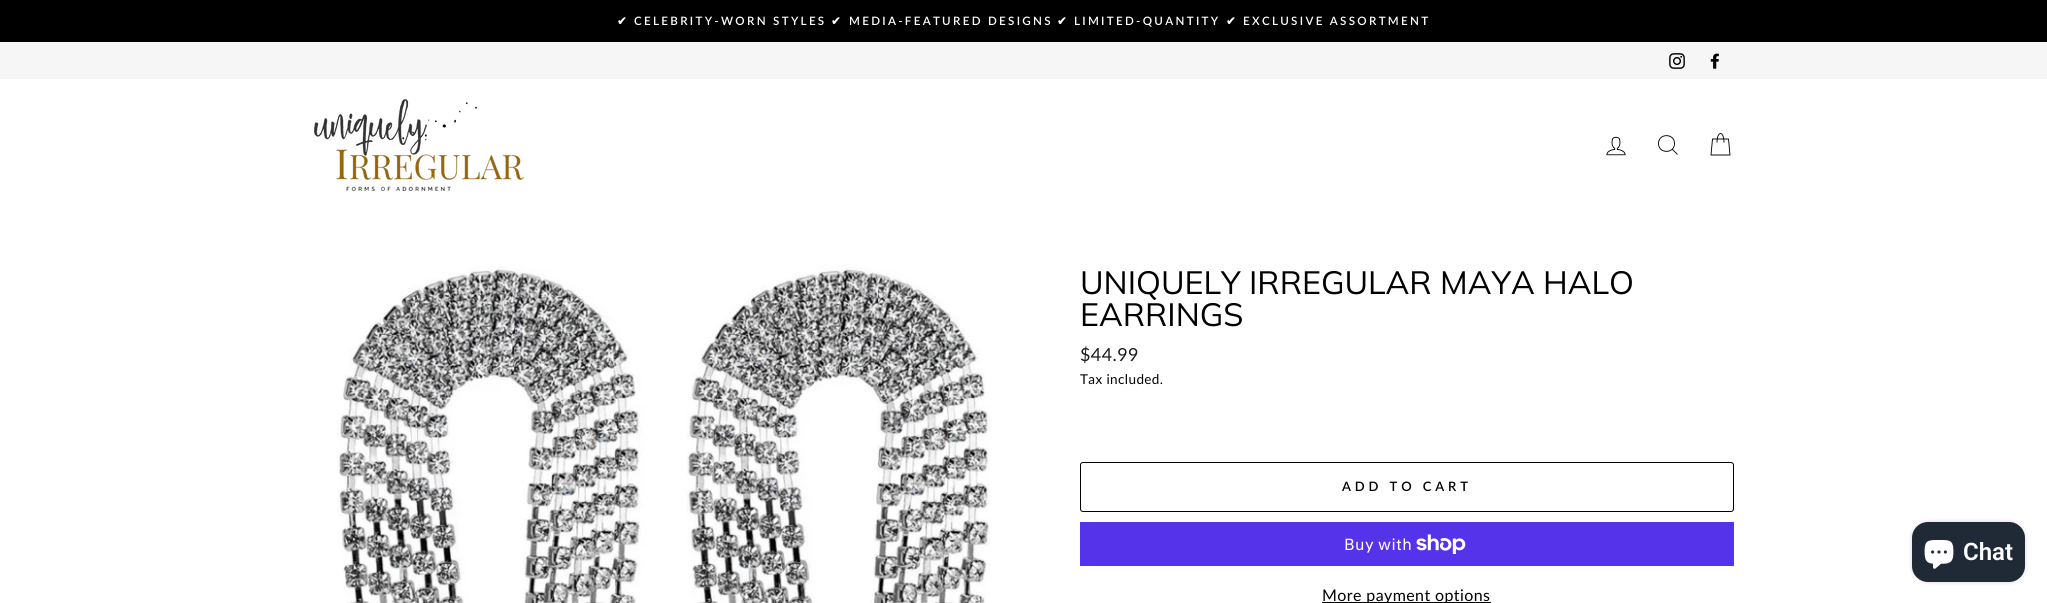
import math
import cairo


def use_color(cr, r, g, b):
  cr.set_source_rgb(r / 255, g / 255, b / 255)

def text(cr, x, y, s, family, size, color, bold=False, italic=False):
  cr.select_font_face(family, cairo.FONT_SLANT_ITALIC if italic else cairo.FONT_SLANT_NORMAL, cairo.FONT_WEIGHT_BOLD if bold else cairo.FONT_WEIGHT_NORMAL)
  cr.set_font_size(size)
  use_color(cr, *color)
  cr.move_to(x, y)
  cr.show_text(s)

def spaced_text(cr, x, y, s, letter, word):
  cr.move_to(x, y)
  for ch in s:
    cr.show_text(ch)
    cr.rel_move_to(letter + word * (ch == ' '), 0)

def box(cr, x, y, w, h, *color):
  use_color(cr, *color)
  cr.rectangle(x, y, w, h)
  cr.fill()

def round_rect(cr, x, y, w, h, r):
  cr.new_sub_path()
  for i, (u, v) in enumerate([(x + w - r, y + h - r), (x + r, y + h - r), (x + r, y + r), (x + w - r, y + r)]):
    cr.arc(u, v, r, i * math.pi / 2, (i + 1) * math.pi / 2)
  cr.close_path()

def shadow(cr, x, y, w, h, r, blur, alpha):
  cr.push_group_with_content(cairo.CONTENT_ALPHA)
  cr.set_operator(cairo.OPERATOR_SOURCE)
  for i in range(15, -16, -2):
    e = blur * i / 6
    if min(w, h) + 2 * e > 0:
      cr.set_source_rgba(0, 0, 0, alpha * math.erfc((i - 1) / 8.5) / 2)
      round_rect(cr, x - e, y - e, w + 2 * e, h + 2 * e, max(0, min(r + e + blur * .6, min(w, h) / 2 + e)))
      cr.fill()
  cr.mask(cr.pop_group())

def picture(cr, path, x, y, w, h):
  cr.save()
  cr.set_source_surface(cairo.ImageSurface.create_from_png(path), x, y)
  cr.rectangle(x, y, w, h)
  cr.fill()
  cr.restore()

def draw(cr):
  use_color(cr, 255, 255, 255)
  cr.paint()
  box(cr, 0, 0, 2047, 42, 0, 0, 0)
  box(cr, 0, 42, 2047, 37, 246, 246, 246)
  picture(cr, "img_01.png", 1669, 53, 16, 16)
  picture(cr, "img_02.png", 1710, 53, 9, 16)
  picture(cr, "img_03.png", 314, 99, 210, 92)
  picture(cr, "img_04.png", 1606, 136, 20, 20)
  cr.new_path()
  cr.move_to(1674.5, 143.5)
  cr.curve_to(1674.5, 154, 1658.5, 154, 1658.5, 143.5)
  cr.curve_to(1658.5, 133, 1674.5, 133, 1674.5, 143.5)
  cr.close_path()
  cr.move_to(1677.5, 154.5)
  cr.line_to(1672.5, 149.5)
  use_color(cr, 0, 0, 0)
  cr.set_line_width(0.9)
  cr.stroke()
  cr.new_path()
  cr.move_to(1717, 142.5)
  cr.curve_to(1717, 130.5, 1724, 130.5, 1724, 142.5)
  cr.move_to(1712.5, 139)
  cr.line_to(1728.5, 139)
  cr.line_to(1730, 155)
  cr.line_to(1711, 155)
  cr.close_path()
  cr.stroke()
  picture(cr, "img_05.png", 337, 266, 653, 337)
  round_rect(cr, 1080.5, 462.5, 653, 49, 2.5)
  cr.set_line_width(1)
  cr.stroke()
  box(cr, 1080, 522, 654, 44, 84, 51, 235)
  picture(cr, "img_06.png", 1416, 534, 50, 20)
  box(cr, 1322, 602, 169, 1, 0, 0, 0)
  use_color(cr, 0, 0, 0)
  shadow(cr, 1912, 522, 113, 60, 16, 2.5, 0.15)
  use_color(cr, 32, 42, 54)
  round_rect(cr, 1912, 522, 113, 60, 16)
  cr.fill()
  picture(cr, "img_07.png", 1924, 540, 30, 29)
  cr.select_font_face("DejaVu Sans", cairo.FONT_SLANT_NORMAL, cairo.FONT_WEIGHT_BOLD)
  cr.set_font_size(11.6)
  use_color(cr, 255, 255, 255)
  spaced_text(cr, 617, 25, "✔", 2.3, 0)
  cr.select_font_face("Lato SemiBold")
  spaced_text(cr, 634, 25, "CELEBRITY-WORN STYLES", 2.3, 0)
  cr.select_font_face("DejaVu Sans", cairo.FONT_SLANT_NORMAL, cairo.FONT_WEIGHT_BOLD)
  spaced_text(cr, 831, 25, "✔", 2.3, 0)
  cr.select_font_face("Lato SemiBold")
  spaced_text(cr, 849, 25, "MEDIA-FEATURED DESIGNS", 2.3, 0)
  cr.select_font_face("DejaVu Sans", cairo.FONT_SLANT_NORMAL, cairo.FONT_WEIGHT_BOLD)
  spaced_text(cr, 1057, 25, "✔", 2.3, 0)
  cr.select_font_face("Lato SemiBold")
  spaced_text(cr, 1074, 25, "LIMITED-QUANTITY", 2.3, 0)
  cr.select_font_face("DejaVu Sans", cairo.FONT_SLANT_NORMAL, cairo.FONT_WEIGHT_BOLD)
  spaced_text(cr, 1226, 25, "✔", 2.3, 0)
  cr.select_font_face("Lato SemiBold")
  spaced_text(cr, 1243, 25, "EXCLUSIVE ASSORTMENT", 2.3, 0)
  text(cr, 1080, 294, "UNIQUELY IRREGULAR MAYA HALO", "Muli", 32.25, (0, 0, 0))
  text(cr, 1080, 326, "EARRINGS", "Muli", 32.25, (0, 0, 0))
  cr.select_font_face("Lato")
  cr.set_font_size(18)
  use_color(cr, 28, 29, 29)
  spaced_text(cr, 1080, 361, "$44.99", 0.4, 0)
  cr.set_font_size(13.5)
  use_color(cr, 0, 0, 0)
  spaced_text(cr, 1080, 384, "Tax included.", 0.4, 0)
  cr.select_font_face("Lato SemiBold")
  cr.set_font_size(13)
  spaced_text(cr, 1342, 491, "ADD TO CART", 3.9, 0)
  cr.select_font_face("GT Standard")
  cr.set_font_size(16)
  use_color(cr, 255, 255, 255)
  spaced_text(cr, 1344, 550, "Buy with", 0.4, 0)
  cr.select_font_face("Lato")
  use_color(cr, 0, 0, 0)
  spaced_text(cr, 1322, 601, "More payment options", 0.4, 0)
  text(cr, 1963, 560, "Chat", "Roboto SemiBold", 24, (255, 255, 255))


surface = cairo.ImageSurface(cairo.FORMAT_RGB24, 2047, 603)
cr = cairo.Context(surface)
options = cairo.FontOptions()
options.set_hint_metrics(cairo.HINT_METRICS_OFF)
options.set_hint_style(cairo.HINT_STYLE_NONE)
cr.set_font_options(options)
cr.set_miter_limit(4)
draw(cr)
surface.write_to_png("out.png")
